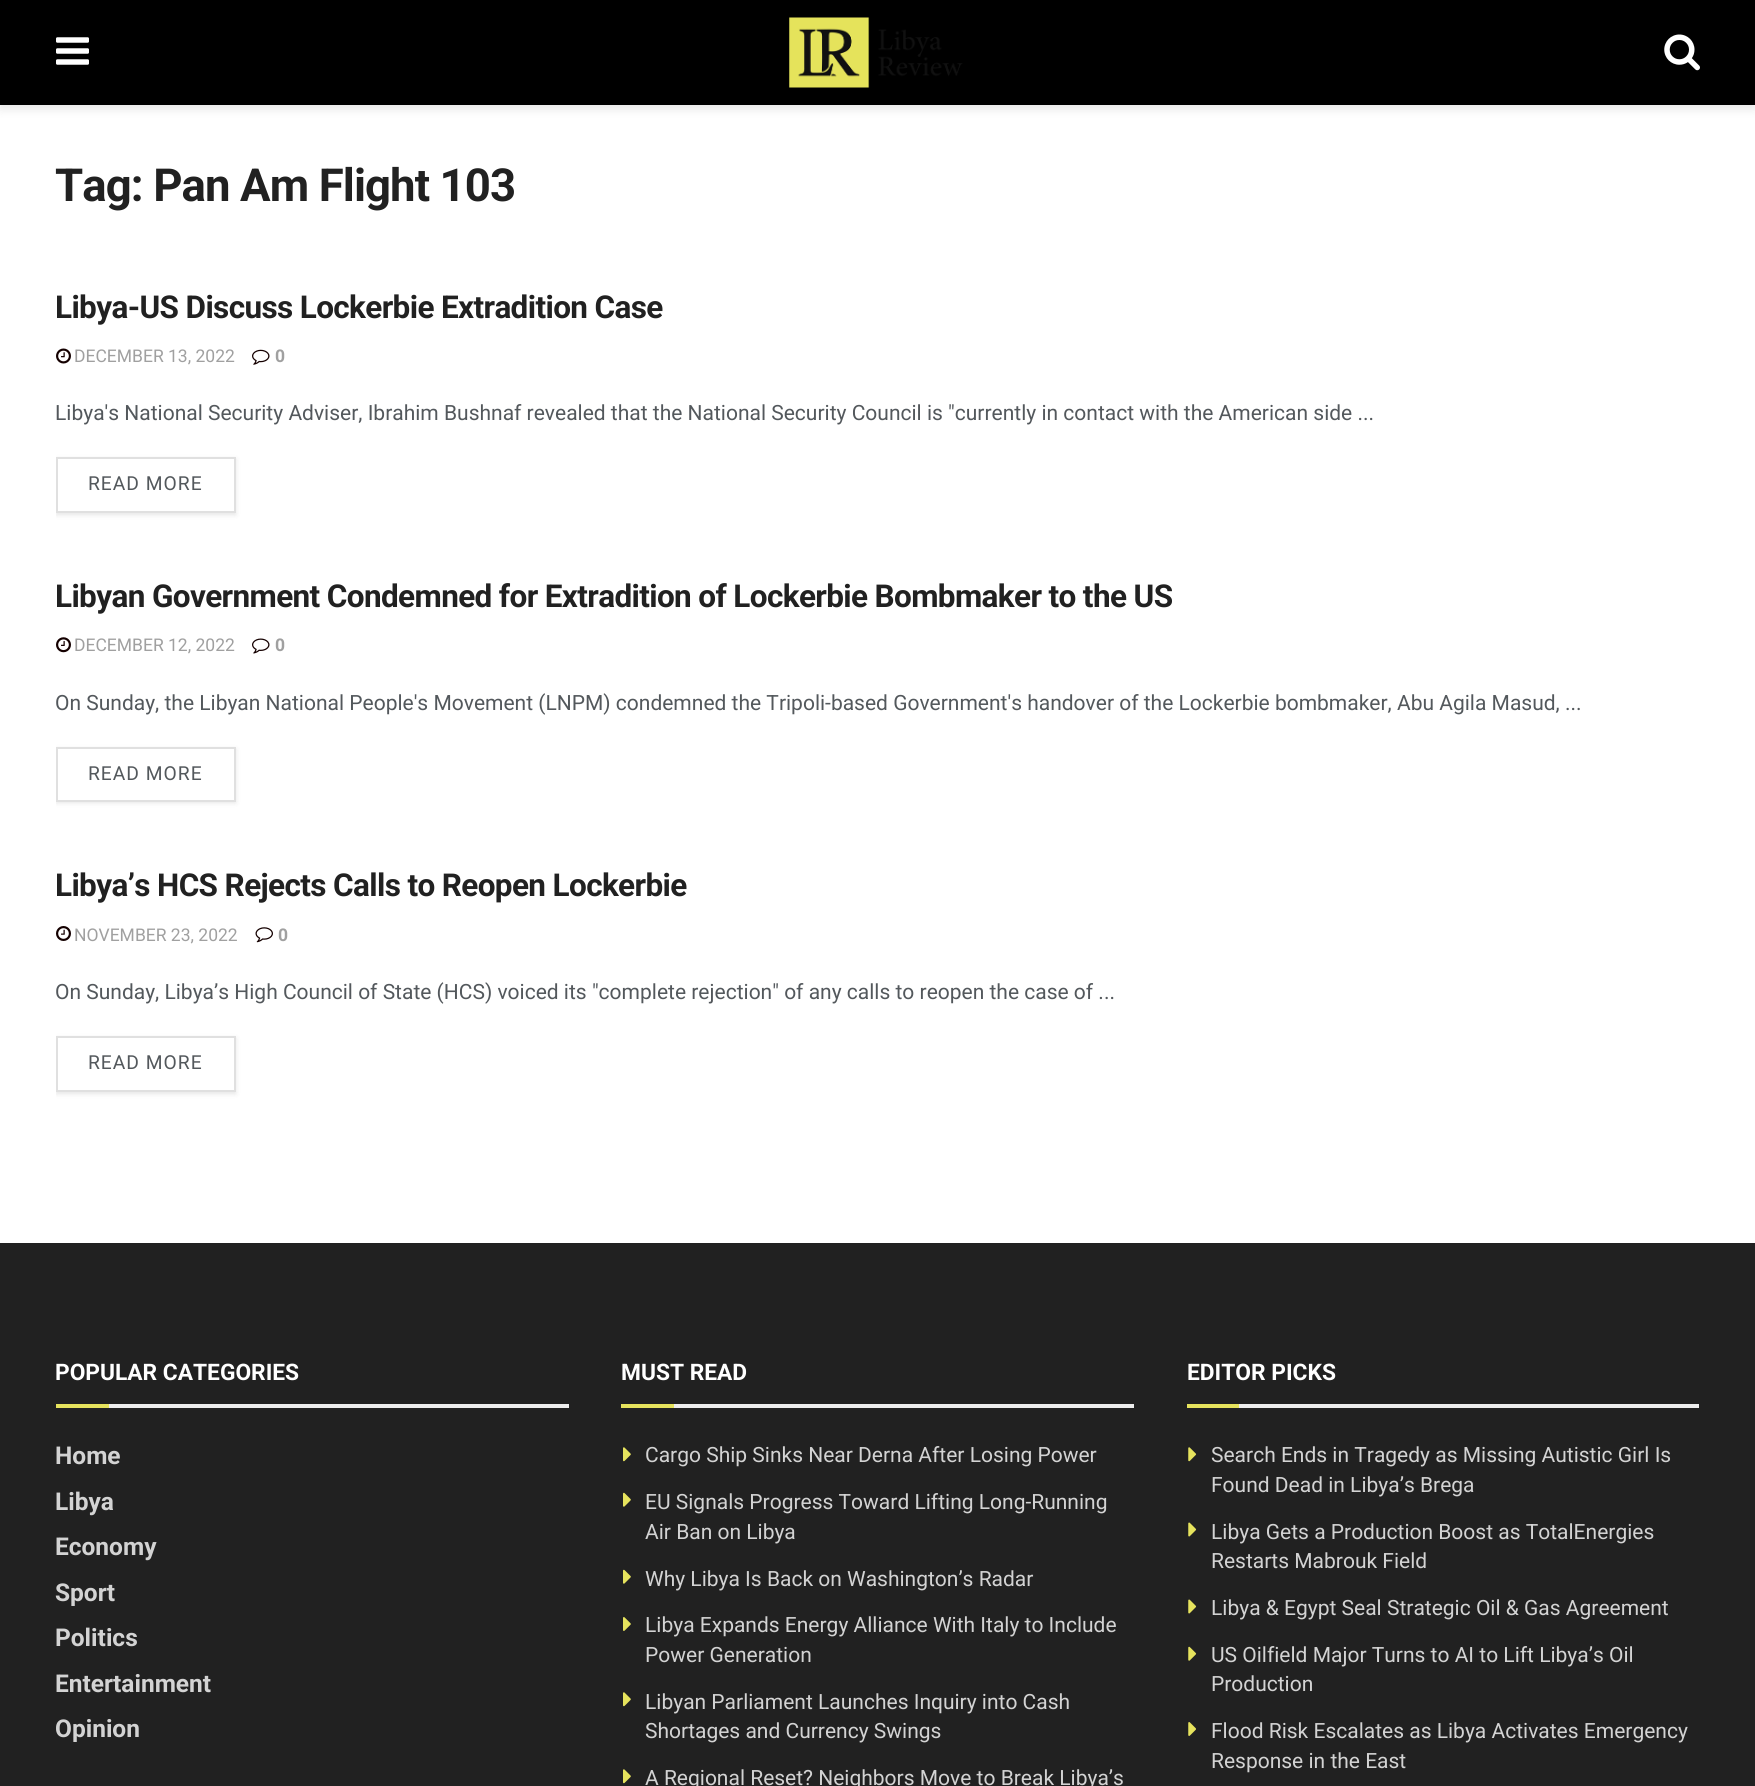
import math
import cairo


def use_color(cr, r, g, b):
  cr.set_source_rgb(r / 255, g / 255, b / 255)

def text(cr, x, y, s, family, size, color, bold=False, italic=False):
  cr.select_font_face(family, cairo.FONT_SLANT_ITALIC if italic else cairo.FONT_SLANT_NORMAL, cairo.FONT_WEIGHT_BOLD if bold else cairo.FONT_WEIGHT_NORMAL)
  cr.set_font_size(size)
  use_color(cr, *color)
  cr.move_to(x, y)
  cr.show_text(s)

def spaced_text(cr, x, y, s, letter, word):
  cr.move_to(x, y)
  for ch in s:
    cr.show_text(ch)
    cr.rel_move_to(letter + word * (ch == ' '), 0)

def box(cr, x, y, w, h, *color):
  use_color(cr, *color)
  cr.rectangle(x, y, w, h)
  cr.fill()

def round_rect(cr, x, y, w, h, r):
  cr.new_sub_path()
  for i, (u, v) in enumerate([(x + w - r, y + h - r), (x + r, y + h - r), (x + r, y + r), (x + w - r, y + r)]):
    cr.arc(u, v, r, i * math.pi / 2, (i + 1) * math.pi / 2)
  cr.close_path()

def shadow(cr, x, y, w, h, r, blur, alpha):
  cr.push_group_with_content(cairo.CONTENT_ALPHA)
  cr.set_operator(cairo.OPERATOR_SOURCE)
  for i in range(15, -16, -2):
    e = blur * i / 6
    if min(w, h) + 2 * e > 0:
      cr.set_source_rgba(0, 0, 0, alpha * math.erfc((i - 1) / 8.5) / 2)
      round_rect(cr, x - e, y - e, w + 2 * e, h + 2 * e, max(0, min(r + e + blur * .6, min(w, h) / 2 + e)))
      cr.fill()
  cr.mask(cr.pop_group())

def picture(cr, path, x, y, w, h):
  cr.save()
  cr.set_source_surface(cairo.ImageSurface.create_from_png(path), x, y)
  cr.rectangle(x, y, w, h)
  cr.fill()
  cr.restore()

def draw(cr):
  use_color(cr, 255, 255, 255)
  cr.paint()
  use_color(cr, 0, 0, 0)
  shadow(cr, 0, 4, 1755, 105, 0, 5, 0.1)
  box(cr, 0, 0, 1755, 105, 0, 0, 0)
  picture(cr, "img_01.png", 56, 37, 33, 28)
  picture(cr, "img_02.png", 789, 17, 174, 71)
  picture(cr, "img_03.png", 1664, 34, 36, 37)
  picture(cr, "img_04.png", 56, 348, 15, 16)
  picture(cr, "img_05.png", 252, 349, 18, 16)
  cr.save()
  cr.rectangle(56, 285, 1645, 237)
  cr.clip()
  cr.set_fill_rule(cairo.FILL_RULE_EVEN_ODD)
  cr.new_path()
  cr.move_to(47, 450)
  cr.line_to(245, 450)
  cr.line_to(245, 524)
  cr.line_to(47, 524)
  cr.close_path()
  cr.move_to(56, 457)
  cr.line_to(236, 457)
  cr.line_to(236, 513)
  cr.line_to(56, 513)
  cr.close_path()
  cr.clip()
  use_color(cr, 0, 0, 0)
  shadow(cr, 56, 459, 180, 56, 0, 2.5, 0.1)
  cr.restore()
  cr.rectangle(57, 458, 178, 54)
  use_color(cr, 224, 224, 224)
  cr.stroke()
  picture(cr, "img_06.png", 56, 637, 15, 16)
  picture(cr, "img_07.png", 252, 638, 18, 16)
  cr.save()
  cr.rectangle(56, 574, 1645, 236)
  cr.clip()
  cr.set_fill_rule(cairo.FILL_RULE_EVEN_ODD)
  cr.new_path()
  cr.move_to(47, 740)
  cr.line_to(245, 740)
  cr.line_to(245, 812)
  cr.line_to(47, 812)
  cr.close_path()
  cr.move_to(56, 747)
  cr.line_to(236, 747)
  cr.line_to(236, 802)
  cr.line_to(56, 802)
  cr.close_path()
  cr.clip()
  use_color(cr, 0, 0, 0)
  shadow(cr, 56, 749, 180, 54, 0, 2.5, 0.1)
  cr.restore()
  cr.rectangle(57, 748, 178, 53)
  cr.stroke()
  picture(cr, "img_08.png", 56, 926, 15, 15)
  picture(cr, "img_09.png", 255, 927, 18, 16)
  cr.save()
  cr.rectangle(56, 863, 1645, 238)
  cr.clip()
  cr.set_fill_rule(cairo.FILL_RULE_EVEN_ODD)
  cr.new_path()
  cr.move_to(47, 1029)
  cr.line_to(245, 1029)
  cr.line_to(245, 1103)
  cr.line_to(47, 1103)
  cr.close_path()
  cr.move_to(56, 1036)
  cr.line_to(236, 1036)
  cr.line_to(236, 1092)
  cr.line_to(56, 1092)
  cr.close_path()
  cr.clip()
  use_color(cr, 0, 0, 0)
  shadow(cr, 56, 1038, 180, 56, 0, 2.5, 0.1)
  cr.restore()
  cr.rectangle(57, 1037, 178, 54)
  cr.stroke()
  box(cr, 0, 1243, 1755, 543, 33, 33, 33)
  box(cr, 109, 1404, 460, 4, 238, 238, 238)
  box(cr, 56, 1404, 53, 4, 230, 227, 93)
  box(cr, 674, 1404, 460, 4, 238, 238, 238)
  box(cr, 621, 1404, 53, 4, 230, 227, 93)
  picture(cr, "img_10.png", 623, 1447, 8, 15)
  picture(cr, "img_11.png", 623, 1492, 8, 15)
  picture(cr, "img_11.png", 623, 1569, 8, 15)
  picture(cr, "img_12.png", 623, 1617, 8, 14)
  picture(cr, "img_10.png", 623, 1692, 8, 15)
  picture(cr, "img_10.png", 623, 1769, 8, 15)
  box(cr, 1239, 1404, 460, 4, 238, 238, 238)
  box(cr, 1187, 1404, 52, 4, 230, 227, 93)
  picture(cr, "img_13.png", 1188, 1447, 9, 15)
  picture(cr, "img_14.png", 1188, 1522, 9, 15)
  picture(cr, "img_14.png", 1188, 1599, 9, 15)
  picture(cr, "img_15.png", 1188, 1646, 9, 15)
  picture(cr, "img_16.png", 1188, 1722, 8, 14)
  cr.select_font_face("Roboto", cairo.FONT_SLANT_NORMAL, cairo.FONT_WEIGHT_BOLD)
  cr.set_font_size(45.5)
  use_color(cr, 33, 33, 33)
  spaced_text(cr, 55, 201, "Tag: Pan Am Flight 103", -0.9, 0)
  cr.set_font_size(31.5)
  spaced_text(cr, 55, 318, "Libya-US Discuss Lockerbie Extradition Case", -0.63, 0)
  text(cr, 74, 362, "DECEMBER 13, 2022", "Roboto", 17.5, (160, 160, 160))
  text(cr, 275, 362, "0", "Roboto", 17.5, (160, 160, 160), bold=True)
  text(cr, 55, 420, "Libya's National Security Adviser, Ibrahim Bushnaf revealed that the National Security Council is \"currently in contact with the American side ...", "Roboto", 21, (83, 88, 92))
  cr.set_font_size(19.25)
  spaced_text(cr, 88, 490, "READ MORE", 1, 0)
  cr.select_font_face("Roboto", cairo.FONT_SLANT_NORMAL, cairo.FONT_WEIGHT_BOLD)
  cr.set_font_size(31.5)
  use_color(cr, 33, 33, 33)
  spaced_text(cr, 55, 607, "Libyan Government Condemned for Extradition of Lockerbie Bombmaker to the US", -0.63, 0)
  text(cr, 74, 651, "DECEMBER 12, 2022", "Roboto", 17.5, (160, 160, 160))
  text(cr, 275, 651, "0", "Roboto", 17.5, (160, 160, 160), bold=True)
  text(cr, 55, 710, "On Sunday, the Libyan National People's Movement (LNPM) condemned the Tripoli-based Government's handover of the Lockerbie bombmaker, Abu Agila Masud, ...", "Roboto", 21, (83, 88, 92))
  cr.set_font_size(19.25)
  spaced_text(cr, 88, 780, "READ MORE", 1, 0)
  cr.select_font_face("Roboto", cairo.FONT_SLANT_NORMAL, cairo.FONT_WEIGHT_BOLD)
  cr.set_font_size(31.5)
  use_color(cr, 33, 33, 33)
  spaced_text(cr, 55, 896, "Libya’s HCS Rejects Calls to Reopen Lockerbie", -0.63, 0)
  text(cr, 74, 941, "NOVEMBER 23, 2022", "Roboto", 17.5, (160, 160, 160))
  text(cr, 278, 941, "0", "Roboto", 17.5, (160, 160, 160), bold=True)
  text(cr, 55, 999, "On Sunday, Libya’s High Council of State (HCS) voiced its \"complete rejection\" of any calls to reopen the case of ...", "Roboto", 21, (83, 88, 92))
  cr.set_font_size(19.25)
  spaced_text(cr, 88, 1069, "READ MORE", 1, 0)
  text(cr, 55, 1380, "POPULAR CATEGORIES", "Roboto", 22.75, (255, 255, 255), bold=True)
  text(cr, 55, 1464, "Home", "Roboto", 24.5, (211, 211, 211), bold=True)
  text(cr, 55, 1510, "Libya", "Roboto", 24.5, (211, 211, 211), bold=True)
  text(cr, 55, 1555, "Economy", "Roboto", 24.5, (211, 211, 211), bold=True)
  text(cr, 55, 1601, "Sport", "Roboto", 24.5, (211, 211, 211), bold=True)
  text(cr, 55, 1646, "Politics", "Roboto", 24.5, (211, 211, 211), bold=True)
  text(cr, 55, 1692, "Entertainment", "Roboto", 24.5, (211, 211, 211), bold=True)
  text(cr, 55, 1737, "Opinion", "Roboto", 24.5, (211, 211, 211), bold=True)
  text(cr, 621, 1380, "MUST READ", "Roboto", 22.75, (255, 255, 255), bold=True)
  text(cr, 645, 1462, "Cargo Ship Sinks Near Derna After Losing Power", "Roboto", 21, (211, 211, 211))
  text(cr, 645, 1509, "EU Signals Progress Toward Lifting Long-Running", "Roboto", 21, (211, 211, 211))
  text(cr, 645, 1539, "Air Ban on Libya", "Roboto", 21, (211, 211, 211))
  text(cr, 645, 1586, "Why Libya Is Back on Washington’s Radar", "Roboto", 21, (211, 211, 211))
  text(cr, 645, 1632, "Libya Expands Energy Alliance With Italy to Include", "Roboto", 21, (211, 211, 211))
  text(cr, 645, 1662, "Power Generation", "Roboto", 21, (211, 211, 211))
  text(cr, 645, 1709, "Libyan Parliament Launches Inquiry into Cash", "Roboto", 21, (211, 211, 211))
  text(cr, 645, 1738, "Shortages and Currency Swings", "Roboto", 21, (211, 211, 211))
  text(cr, 645, 1785, "A Regional Reset? Neighbors Move to Break Libya’s", "Roboto", 21, (211, 211, 211))
  text(cr, 1187, 1380, "EDITOR PICKS", "Roboto", 22.75, (255, 255, 255), bold=True)
  text(cr, 1211, 1462, "Search Ends in Tragedy as Missing Autistic Girl Is", "Roboto", 21, (211, 211, 211))
  text(cr, 1211, 1492, "Found Dead in Libya’s Brega", "Roboto", 21, (211, 211, 211))
  text(cr, 1211, 1539, "Libya Gets a Production Boost as TotalEnergies", "Roboto", 21, (211, 211, 211))
  text(cr, 1211, 1568, "Restarts Mabrouk Field", "Roboto", 21, (211, 211, 211))
  text(cr, 1211, 1615, "Libya & Egypt Seal Strategic Oil & Gas Agreement", "Roboto", 21, (211, 211, 211))
  text(cr, 1211, 1662, "US Oilfield Major Turns to AI to Lift Libya’s Oil", "Roboto", 21, (211, 211, 211))
  text(cr, 1211, 1691, "Production", "Roboto", 21, (211, 211, 211))
  text(cr, 1211, 1738, "Flood Risk Escalates as Libya Activates Emergency", "Roboto", 21, (211, 211, 211))
  text(cr, 1211, 1768, "Response in the East", "Roboto", 21, (211, 211, 211))


surface = cairo.ImageSurface(cairo.FORMAT_RGB24, 1755, 1786)
cr = cairo.Context(surface)
options = cairo.FontOptions()
options.set_hint_metrics(cairo.HINT_METRICS_OFF)
options.set_hint_style(cairo.HINT_STYLE_NONE)
cr.set_font_options(options)
cr.set_miter_limit(4)
draw(cr)
surface.write_to_png("out.png")
